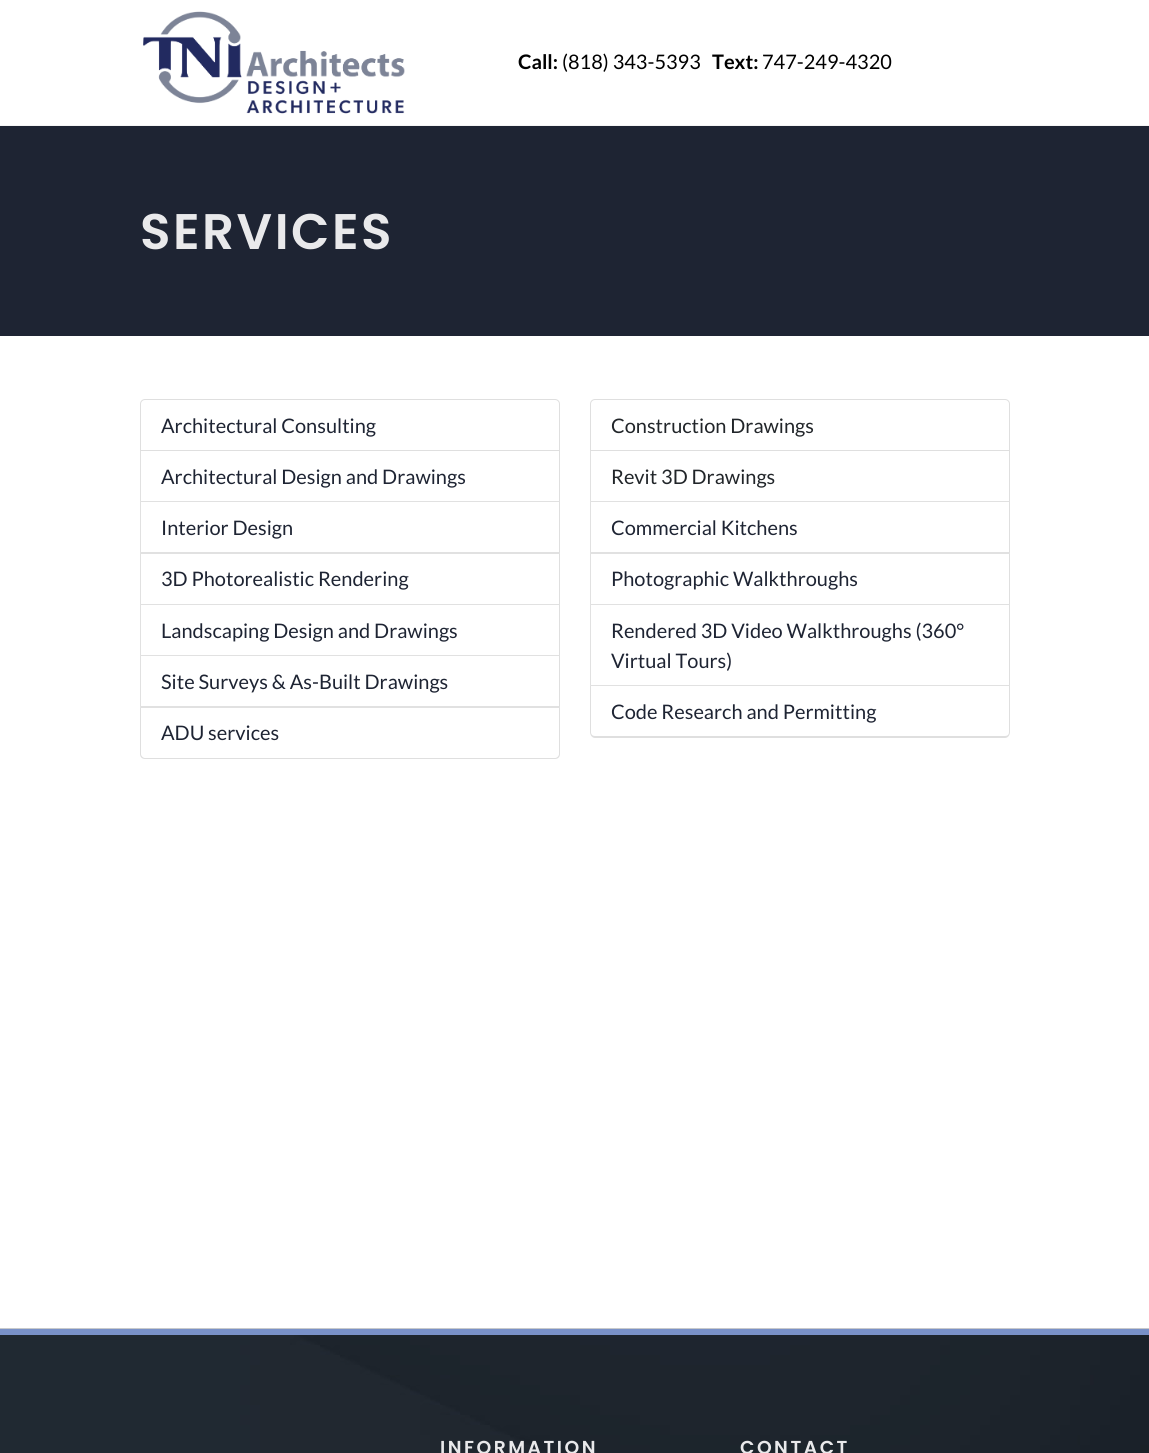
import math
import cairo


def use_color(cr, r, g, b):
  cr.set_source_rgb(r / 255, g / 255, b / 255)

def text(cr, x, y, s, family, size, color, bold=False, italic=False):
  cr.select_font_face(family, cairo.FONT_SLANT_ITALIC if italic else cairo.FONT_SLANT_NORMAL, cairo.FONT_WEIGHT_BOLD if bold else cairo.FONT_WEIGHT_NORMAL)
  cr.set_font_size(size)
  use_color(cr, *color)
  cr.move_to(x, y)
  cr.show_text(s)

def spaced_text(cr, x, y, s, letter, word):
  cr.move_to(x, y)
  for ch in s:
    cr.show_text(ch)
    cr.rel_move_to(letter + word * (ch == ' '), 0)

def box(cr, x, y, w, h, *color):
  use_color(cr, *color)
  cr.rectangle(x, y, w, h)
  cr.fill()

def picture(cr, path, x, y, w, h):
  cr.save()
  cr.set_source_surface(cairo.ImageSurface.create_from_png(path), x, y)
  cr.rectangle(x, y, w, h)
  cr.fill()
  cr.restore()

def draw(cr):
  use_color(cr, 255, 255, 255)
  cr.paint()
  box(cr, 0, 125, 1149, 1, 245, 245, 245)
  picture(cr, "img_01.png", 143, 11, 262, 103)
  box(cr, 0, 126, 1149, 210, 30, 36, 51)
  cr.new_path()
  cr.move_to(145, 399.5)
  cr.line_to(555, 399.5)
  cr.curve_to(557.5, 399.5, 559.5, 401.5, 559.5, 404)
  cr.line_to(559.5, 450.5)
  cr.line_to(140.5, 450.5)
  cr.line_to(140.5, 404)
  cr.curve_to(140.5, 401.5, 142.5, 399.5, 145, 399.5)
  cr.close_path()
  use_color(cr, 223, 223, 223)
  cr.set_line_width(1)
  cr.stroke()
  cr.new_path()
  cr.move_to(560, 451)
  cr.line_to(560, 502)
  cr.line_to(559, 501)
  cr.line_to(559, 451)
  cr.close_path()
  cr.fill()
  cr.set_source_rgba(0, 0, 0, 0.12)
  cr.new_path()
  cr.move_to(560, 502)
  cr.line_to(140, 502)
  cr.line_to(141, 501)
  cr.line_to(559, 501)
  cr.close_path()
  cr.fill()
  cr.new_path()
  cr.move_to(140, 502)
  cr.line_to(140, 451)
  cr.line_to(141, 451)
  cr.line_to(141, 501)
  cr.close_path()
  cr.fill()
  use_color(cr, 223, 223, 223)
  cr.new_path()
  cr.move_to(560, 502)
  cr.line_to(560, 554)
  cr.line_to(559, 552)
  cr.line_to(559, 502)
  cr.close_path()
  cr.fill()
  cr.set_source_rgba(0, 0, 0, 0.12)
  cr.new_path()
  cr.move_to(560, 554)
  cr.line_to(140, 554)
  cr.line_to(141, 552)
  cr.line_to(559, 552)
  cr.close_path()
  cr.fill()
  cr.new_path()
  cr.move_to(140, 554)
  cr.line_to(140, 502)
  cr.line_to(141, 502)
  cr.line_to(141, 552)
  cr.close_path()
  cr.fill()
  use_color(cr, 223, 223, 223)
  cr.new_path()
  cr.move_to(560, 554)
  cr.line_to(560, 605)
  cr.line_to(559, 604)
  cr.line_to(559, 554)
  cr.close_path()
  cr.fill()
  cr.set_source_rgba(0, 0, 0, 0.12)
  cr.new_path()
  cr.move_to(560, 605)
  cr.line_to(140, 605)
  cr.line_to(141, 604)
  cr.line_to(559, 604)
  cr.close_path()
  cr.fill()
  cr.new_path()
  cr.move_to(140, 605)
  cr.line_to(140, 554)
  cr.line_to(141, 554)
  cr.line_to(141, 604)
  cr.close_path()
  cr.fill()
  use_color(cr, 223, 223, 223)
  cr.new_path()
  cr.move_to(560, 605)
  cr.line_to(560, 656)
  cr.line_to(559, 655)
  cr.line_to(559, 605)
  cr.close_path()
  cr.fill()
  cr.set_source_rgba(0, 0, 0, 0.12)
  cr.new_path()
  cr.move_to(560, 656)
  cr.line_to(140, 656)
  cr.line_to(141, 655)
  cr.line_to(559, 655)
  cr.close_path()
  cr.fill()
  cr.new_path()
  cr.move_to(140, 656)
  cr.line_to(140, 605)
  cr.line_to(141, 605)
  cr.line_to(141, 655)
  cr.close_path()
  cr.fill()
  use_color(cr, 223, 223, 223)
  cr.new_path()
  cr.move_to(560, 656)
  cr.line_to(560, 708)
  cr.line_to(559, 706)
  cr.line_to(559, 656)
  cr.close_path()
  cr.fill()
  cr.set_source_rgba(0, 0, 0, 0.12)
  cr.new_path()
  cr.move_to(560, 708)
  cr.line_to(140, 708)
  cr.line_to(141, 706)
  cr.line_to(559, 706)
  cr.close_path()
  cr.fill()
  cr.new_path()
  cr.move_to(140, 708)
  cr.line_to(140, 656)
  cr.line_to(141, 656)
  cr.line_to(141, 706)
  cr.close_path()
  cr.fill()
  use_color(cr, 223, 223, 223)
  cr.set_fill_rule(cairo.FILL_RULE_EVEN_ODD)
  cr.new_path()
  cr.move_to(140, 708)
  cr.line_to(560, 708)
  cr.line_to(560, 754)
  cr.curve_to(560, 757, 558, 759, 555, 759)
  cr.line_to(145, 759)
  cr.curve_to(142, 759, 140, 757, 140, 754)
  cr.close_path()
  cr.move_to(141, 708)
  cr.line_to(559, 708)
  cr.line_to(559, 754)
  cr.curve_to(559, 756, 557, 758, 555, 758)
  cr.line_to(145, 758)
  cr.curve_to(143, 758, 141, 756, 141, 754)
  cr.close_path()
  cr.fill()
  cr.new_path()
  cr.move_to(595, 399.5)
  cr.line_to(1005, 399.5)
  cr.curve_to(1007.5, 399.5, 1009.5, 401.5, 1009.5, 404)
  cr.line_to(1009.5, 450.5)
  cr.line_to(590.5, 450.5)
  cr.line_to(590.5, 404)
  cr.curve_to(590.5, 401.5, 592.5, 399.5, 595, 399.5)
  cr.close_path()
  cr.stroke()
  cr.set_fill_rule(cairo.FILL_RULE_WINDING)
  cr.new_path()
  cr.move_to(1010, 451)
  cr.line_to(1010, 502)
  cr.line_to(1009, 501)
  cr.line_to(1009, 451)
  cr.close_path()
  cr.fill()
  cr.set_source_rgba(0, 0, 0, 0.12)
  cr.new_path()
  cr.move_to(1010, 502)
  cr.line_to(590, 502)
  cr.line_to(591, 501)
  cr.line_to(1009, 501)
  cr.close_path()
  cr.fill()
  cr.new_path()
  cr.move_to(590, 502)
  cr.line_to(590, 451)
  cr.line_to(591, 451)
  cr.line_to(591, 501)
  cr.close_path()
  cr.fill()
  use_color(cr, 223, 223, 223)
  cr.new_path()
  cr.move_to(1010, 502)
  cr.line_to(1010, 554)
  cr.line_to(1009, 552)
  cr.line_to(1009, 502)
  cr.close_path()
  cr.fill()
  cr.set_source_rgba(0, 0, 0, 0.12)
  cr.new_path()
  cr.move_to(1010, 554)
  cr.line_to(590, 554)
  cr.line_to(591, 552)
  cr.line_to(1009, 552)
  cr.close_path()
  cr.fill()
  cr.new_path()
  cr.move_to(590, 554)
  cr.line_to(590, 502)
  cr.line_to(591, 502)
  cr.line_to(591, 552)
  cr.close_path()
  cr.fill()
  use_color(cr, 223, 223, 223)
  cr.new_path()
  cr.move_to(1010, 554)
  cr.line_to(1010, 605)
  cr.line_to(1009, 604)
  cr.line_to(1009, 554)
  cr.close_path()
  cr.fill()
  cr.set_source_rgba(0, 0, 0, 0.12)
  cr.new_path()
  cr.move_to(1010, 605)
  cr.line_to(590, 605)
  cr.line_to(591, 604)
  cr.line_to(1009, 604)
  cr.close_path()
  cr.fill()
  cr.new_path()
  cr.move_to(590, 605)
  cr.line_to(590, 554)
  cr.line_to(591, 554)
  cr.line_to(591, 604)
  cr.close_path()
  cr.fill()
  use_color(cr, 223, 223, 223)
  cr.new_path()
  cr.move_to(1010, 605)
  cr.line_to(1010, 686)
  cr.line_to(1009, 685)
  cr.line_to(1009, 605)
  cr.close_path()
  cr.fill()
  cr.set_source_rgba(0, 0, 0, 0.12)
  cr.new_path()
  cr.move_to(1010, 686)
  cr.line_to(590, 686)
  cr.line_to(591, 685)
  cr.line_to(1009, 685)
  cr.close_path()
  cr.fill()
  cr.new_path()
  cr.move_to(590, 686)
  cr.line_to(590, 605)
  cr.line_to(591, 605)
  cr.line_to(591, 685)
  cr.close_path()
  cr.fill()
  use_color(cr, 223, 223, 223)
  cr.set_fill_rule(cairo.FILL_RULE_EVEN_ODD)
  cr.new_path()
  cr.move_to(590, 686)
  cr.line_to(1010, 686)
  cr.line_to(1010, 732)
  cr.curve_to(1010, 735, 1008, 738, 1005, 738)
  cr.line_to(595, 738)
  cr.curve_to(592, 738, 590, 735, 590, 732)
  cr.close_path()
  cr.move_to(591, 686)
  cr.line_to(1009, 686)
  cr.line_to(1009, 732)
  cr.curve_to(1009, 735, 1007, 736, 1005, 736)
  cr.line_to(595, 736)
  cr.curve_to(593, 736, 591, 735, 591, 732)
  cr.close_path()
  cr.fill()
  picture(cr, "img_02.png", 0, 1328, 1149, 125)
  box(cr, 0, 1329, 1149, 6, 121, 145, 200)
  text(cr, 518, 69, "Call:", "Lato", 20, (0, 0, 0), bold=True)
  text(cr, 562, 69, "(818) 343-5393", "Lato", 20, (0, 0, 0))
  text(cr, 712, 69, "Text:", "Lato", 20, (0, 0, 0), bold=True)
  text(cr, 762, 69, "747-249-4320", "Lato", 20, (0, 0, 0))
  cr.select_font_face("Poppins SemiBold")
  cr.set_font_size(50)
  use_color(cr, 233, 233, 235)
  spaced_text(cr, 140, 249, "SERVICES", 2.5, 0)
  text(cr, 161, 433, "Architectural Consulting", "Lato", 20, (30, 36, 51))
  text(cr, 161, 484, "Architectural Design and Drawings", "Lato", 20, (30, 36, 51))
  text(cr, 161, 535, "Interior Design", "Lato", 20, (30, 36, 51))
  text(cr, 161, 586, "3D Photorealistic Rendering", "Lato", 20, (30, 36, 51))
  text(cr, 161, 638, "Landscaping Design and Drawings", "Lato", 20, (30, 36, 51))
  text(cr, 161, 689, "Site Surveys & As-Built Drawings", "Lato", 20, (30, 36, 51))
  text(cr, 161, 740, "ADU services", "Lato", 20, (30, 36, 51))
  text(cr, 611, 433, "Construction Drawings", "Lato", 20, (33, 37, 41))
  text(cr, 611, 484, "Revit 3D Drawings", "Lato", 20, (33, 37, 41))
  text(cr, 611, 535, "Commercial Kitchens", "Lato", 20, (30, 36, 51))
  text(cr, 611, 586, "Photographic Walkthroughs", "Lato", 20, (30, 36, 51))
  text(cr, 611, 638, "Rendered 3D Video Walkthroughs (360°", "Lato", 20, (30, 36, 51))
  text(cr, 611, 668, "Virtual Tours)", "Lato", 20, (30, 36, 51))
  text(cr, 611, 719, "Code Research and Permitting", "Lato", 20, (30, 36, 51))
  cr.select_font_face("Poppins SemiBold")
  cr.set_font_size(18.75)
  use_color(cr, 233, 233, 235)
  spaced_text(cr, 440, 1454, "INFORMATION", 2.5, 0)
  spaced_text(cr, 740, 1454, "CONTACT", 2.5, 0)


surface = cairo.ImageSurface(cairo.FORMAT_RGB24, 1149, 1453)
cr = cairo.Context(surface)
options = cairo.FontOptions()
options.set_hint_metrics(cairo.HINT_METRICS_OFF)
options.set_hint_style(cairo.HINT_STYLE_NONE)
cr.set_font_options(options)
cr.set_miter_limit(4)
draw(cr)
surface.write_to_png("out.png")
